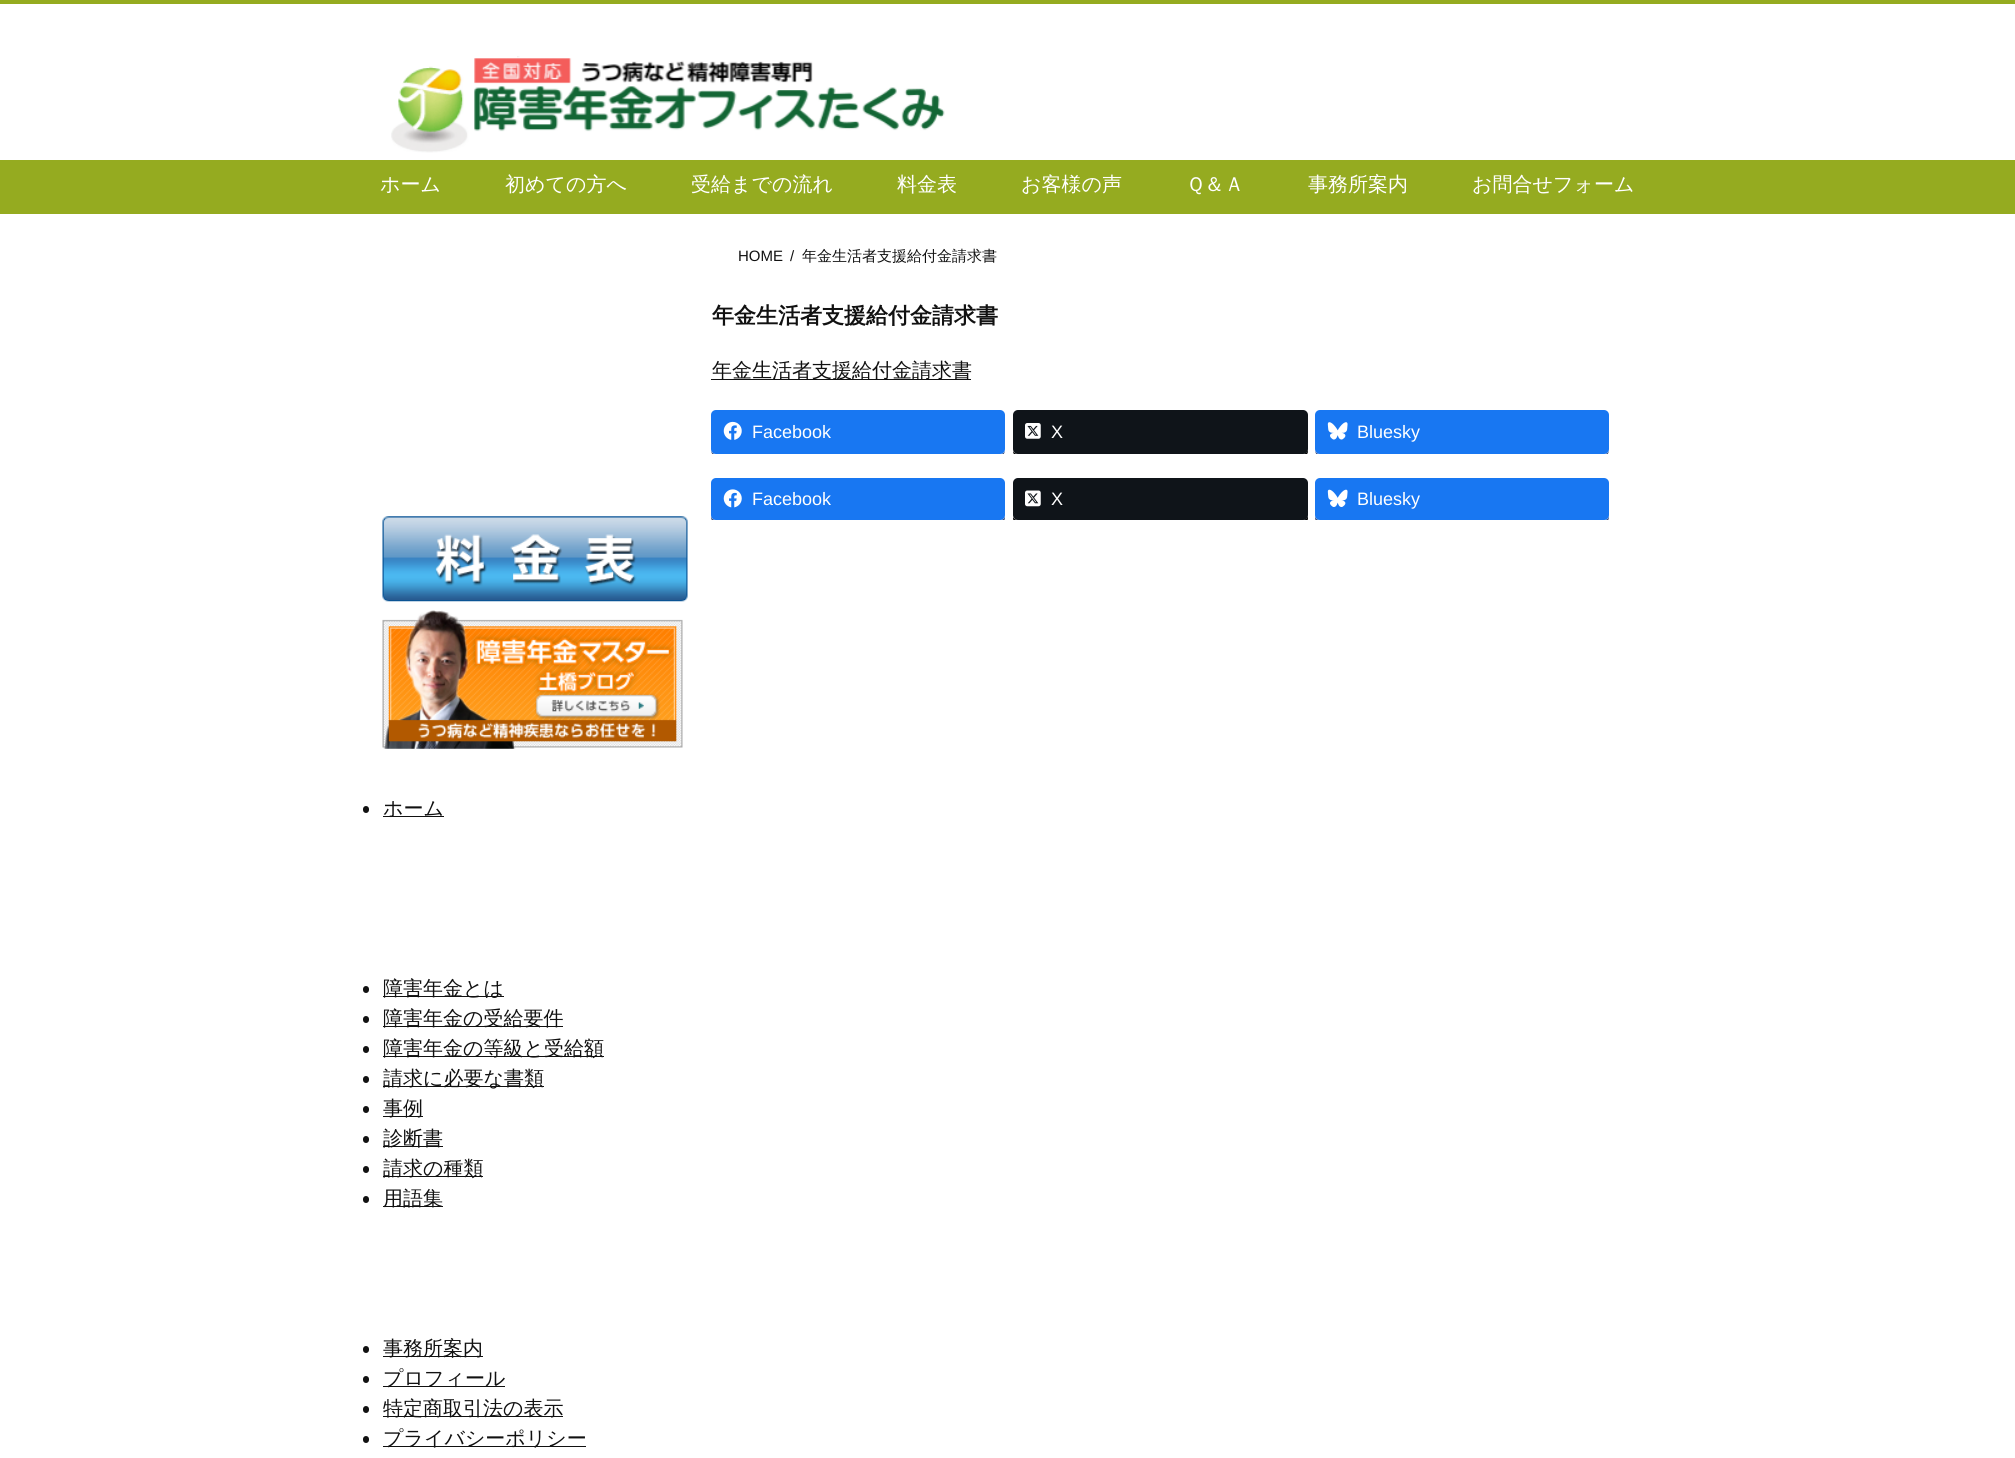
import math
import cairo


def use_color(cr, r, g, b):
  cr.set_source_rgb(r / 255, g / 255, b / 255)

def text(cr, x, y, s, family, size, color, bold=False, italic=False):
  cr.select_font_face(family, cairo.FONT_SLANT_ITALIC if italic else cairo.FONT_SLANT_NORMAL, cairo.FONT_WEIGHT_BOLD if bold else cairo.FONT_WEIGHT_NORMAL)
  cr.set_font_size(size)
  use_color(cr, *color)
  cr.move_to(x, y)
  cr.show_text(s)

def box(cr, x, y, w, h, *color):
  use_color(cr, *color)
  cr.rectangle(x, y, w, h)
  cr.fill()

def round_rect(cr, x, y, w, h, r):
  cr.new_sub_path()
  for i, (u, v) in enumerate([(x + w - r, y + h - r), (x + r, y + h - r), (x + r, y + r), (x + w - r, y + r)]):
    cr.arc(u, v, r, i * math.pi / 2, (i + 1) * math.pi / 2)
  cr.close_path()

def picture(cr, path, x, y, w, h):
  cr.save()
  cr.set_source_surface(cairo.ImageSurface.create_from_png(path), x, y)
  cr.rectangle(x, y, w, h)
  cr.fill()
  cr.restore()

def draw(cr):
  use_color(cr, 255, 255, 255)
  cr.paint()
  box(cr, 0, 0, 2015, 4, 149, 171, 32)
  box(cr, 0, 160, 2015, 54, 149, 171, 32)
  picture(cr, "img_01.png", 391, 56, 554, 97)
  box(cr, 711, 379, 260, 1, 17, 17, 17)
  cr.save()
  cr.rectangle(711, 410, 898, 44)
  cr.clip()
  use_color(cr, 52, 78, 132)
  cr.new_path()
  cr.move_to(711, 416)
  cr.line_to(711, 440)
  cr.curve_to(711, 444, 709, 456, 716, 456)
  cr.line_to(1000, 456)
  cr.curve_to(1004, 456, 1005, 452, 1005, 449)
  cr.curve_to(1005, 452, 1003, 454, 1000, 454)
  cr.line_to(716, 454)
  cr.curve_to(713, 454, 711, 452, 711, 449)
  cr.close_path()
  cr.fill()
  cr.restore()
  use_color(cr, 24, 119, 242)
  round_rect(cr, 711, 410, 294, 44, 5)
  cr.fill()
  picture(cr, "img_02.png", 723, 421, 19, 19)
  cr.save()
  cr.rectangle(711, 410, 898, 44)
  cr.clip()
  use_color(cr, 0, 0, 0)
  cr.new_path()
  cr.move_to(1013, 451)
  cr.curve_to(1013, 454, 1015, 456, 1018, 456)
  cr.line_to(1303, 456)
  cr.curve_to(1306, 456, 1308, 454, 1308, 451)
  cr.line_to(1308, 418)
  cr.line_to(1308, 416)
  cr.line_to(1308, 449)
  cr.curve_to(1308, 452, 1305, 454, 1302, 454)
  cr.line_to(1018, 454)
  cr.curve_to(1016, 454, 1014, 453, 1013, 451)
  cr.close_path()
  cr.fill()
  cr.restore()
  use_color(cr, 15, 20, 25)
  round_rect(cr, 1013, 410, 295, 44, 5)
  cr.fill()
  picture(cr, "img_03.png", 1025, 423, 16, 16)
  cr.save()
  cr.rectangle(711, 410, 898, 44)
  cr.clip()
  use_color(cr, 52, 78, 132)
  cr.new_path()
  cr.move_to(1315, 449)
  cr.curve_to(1315, 452, 1316, 456, 1320, 456)
  cr.line_to(1604, 456)
  cr.curve_to(1611, 456, 1609, 444, 1609, 440)
  cr.line_to(1609, 416)
  cr.line_to(1609, 449)
  cr.curve_to(1609, 452, 1607, 454, 1604, 454)
  cr.line_to(1320, 454)
  cr.curve_to(1317, 454, 1315, 452, 1315, 449)
  cr.close_path()
  cr.fill()
  cr.restore()
  use_color(cr, 24, 119, 242)
  round_rect(cr, 1315, 410, 294, 44, 5)
  cr.fill()
  picture(cr, "img_04.png", 1327, 422, 21, 18)
  cr.save()
  cr.rectangle(711, 478, 898, 42)
  cr.clip()
  use_color(cr, 52, 78, 132)
  cr.new_path()
  cr.move_to(711, 483)
  cr.line_to(711, 507)
  cr.curve_to(711, 511, 709, 523, 716, 523)
  cr.line_to(1000, 523)
  cr.curve_to(1005, 523, 1005, 519, 1005, 515)
  cr.curve_to(1005, 518, 1003, 520, 1000, 520)
  cr.line_to(716, 520)
  cr.curve_to(713, 520, 711, 518, 711, 515)
  cr.close_path()
  cr.fill()
  cr.restore()
  round_rect(cr, 711, 478, 294, 42, 5)
  cr.fill()
  picture(cr, "img_05.png", 723, 489, 19, 19)
  cr.save()
  cr.rectangle(711, 478, 898, 42)
  cr.clip()
  use_color(cr, 0, 0, 0)
  cr.new_path()
  cr.move_to(1013, 517)
  cr.line_to(1013, 518)
  cr.curve_to(1013, 521, 1015, 523, 1018, 523)
  cr.line_to(1303, 523)
  cr.curve_to(1306, 523, 1308, 521, 1308, 518)
  cr.line_to(1308, 485)
  cr.line_to(1308, 483)
  cr.line_to(1308, 515)
  cr.curve_to(1308, 518, 1305, 520, 1302, 520)
  cr.line_to(1018, 520)
  cr.curve_to(1016, 520, 1014, 519, 1013, 517)
  cr.close_path()
  cr.fill()
  cr.restore()
  use_color(cr, 15, 20, 25)
  round_rect(cr, 1013, 478, 295, 42, 5)
  cr.fill()
  picture(cr, "img_06.png", 1025, 490, 16, 17)
  cr.save()
  cr.rectangle(711, 478, 898, 42)
  cr.clip()
  use_color(cr, 52, 78, 132)
  cr.new_path()
  cr.move_to(1315, 515)
  cr.curve_to(1315, 519, 1315, 523, 1320, 523)
  cr.line_to(1604, 523)
  cr.curve_to(1611, 523, 1609, 511, 1609, 507)
  cr.line_to(1609, 483)
  cr.line_to(1609, 515)
  cr.curve_to(1609, 518, 1607, 520, 1604, 520)
  cr.line_to(1320, 520)
  cr.curve_to(1317, 520, 1315, 518, 1315, 515)
  cr.close_path()
  cr.fill()
  cr.restore()
  use_color(cr, 24, 119, 242)
  round_rect(cr, 1315, 478, 294, 42, 5)
  cr.fill()
  picture(cr, "img_07.png", 1327, 489, 21, 18)
  picture(cr, "img_08.png", 382, 516, 306, 86)
  picture(cr, "img_09.png", 382, 610, 301, 139)
  use_color(cr, 17, 17, 17)
  round_rect(cr, 363, 806, 6, 7, 3)
  cr.fill()
  box(cr, 383, 816, 61, 1, 17, 17, 17)
  round_rect(cr, 363, 986, 6, 7, 3)
  cr.fill()
  box(cr, 383, 996, 121, 1, 17, 17, 17)
  round_rect(cr, 363, 1016, 6, 7, 3)
  cr.fill()
  box(cr, 383, 1026, 180, 1, 17, 17, 17)
  round_rect(cr, 363, 1046, 6, 7, 3)
  cr.fill()
  box(cr, 383, 1056, 221, 1, 17, 17, 17)
  round_rect(cr, 363, 1076, 6, 7, 3)
  cr.fill()
  box(cr, 383, 1086, 161, 1, 17, 17, 17)
  round_rect(cr, 363, 1106, 6, 7, 3)
  cr.fill()
  box(cr, 383, 1116, 40, 1, 17, 17, 17)
  round_rect(cr, 363, 1136, 6, 7, 3)
  cr.fill()
  box(cr, 383, 1146, 60, 1, 17, 17, 17)
  round_rect(cr, 363, 1166, 6, 7, 3)
  cr.fill()
  box(cr, 383, 1176, 100, 1, 17, 17, 17)
  round_rect(cr, 363, 1196, 6, 7, 3)
  cr.fill()
  box(cr, 383, 1206, 60, 1, 17, 17, 17)
  round_rect(cr, 363, 1346, 6, 7, 3)
  cr.fill()
  box(cr, 383, 1356, 100, 1, 17, 17, 17)
  round_rect(cr, 363, 1376, 6, 7, 3)
  cr.fill()
  box(cr, 383, 1386, 122, 1, 17, 17, 17)
  round_rect(cr, 363, 1406, 6, 7, 3)
  cr.fill()
  box(cr, 383, 1416, 180, 1, 17, 17, 17)
  round_rect(cr, 363, 1436, 6, 7, 3)
  cr.fill()
  box(cr, 383, 1446, 203, 1, 17, 17, 17)
  text(cr, 380, 191, "ホーム", "WenQuanYi Zen Hei Medium", 20, (255, 255, 255))
  text(cr, 505, 191, "初めての方へ", "WenQuanYi Zen Hei Medium", 20, (255, 255, 255))
  text(cr, 691, 191, "受給までの流れ", "WenQuanYi Zen Hei Medium", 20, (255, 255, 255))
  text(cr, 897, 191, "料金表", "WenQuanYi Zen Hei Medium", 20, (255, 255, 255))
  text(cr, 1021, 191, "お客様の声", "WenQuanYi Zen Hei Medium", 20, (255, 255, 255))
  text(cr, 1186, 191, "Ｑ＆Ａ", "WenQuanYi Zen Hei Medium", 20, (255, 255, 255))
  text(cr, 1308, 191, "事務所案内", "WenQuanYi Zen Hei Medium", 20, (255, 255, 255))
  text(cr, 1472, 191, "お問合せフォーム", "WenQuanYi Zen Hei Medium", 20, (255, 255, 255))
  text(cr, 738, 261, "HOME", "Liberation Sans", 15, (17, 17, 17))
  text(cr, 790, 261, "/", "Liberation Sans", 15, (17, 17, 17))
  text(cr, 802, 261, "年金生活者支援給付金請求書", "WenQuanYi Zen Hei Medium", 15, (17, 17, 17))
  text(cr, 712, 323, "年金生活者支援給付金請求書", "WenQuanYi Zen Hei", 22, (17, 17, 17), bold=True)
  text(cr, 712, 377, "年金生活者支援給付金請求書", "WenQuanYi Zen Hei Medium", 20, (17, 17, 17))
  text(cr, 752, 438, "Facebook", "Liberation Sans", 18, (255, 255, 255))
  text(cr, 1051, 438, "X", "Liberation Sans", 18, (255, 255, 255))
  text(cr, 1357, 438, "Bluesky", "Liberation Sans", 18, (255, 255, 255))
  text(cr, 752, 505, "Facebook", "Liberation Sans", 18, (255, 255, 255))
  text(cr, 1051, 505, "X", "Liberation Sans", 18, (255, 255, 255))
  text(cr, 1357, 505, "Bluesky", "Liberation Sans", 18, (255, 255, 255))
  text(cr, 383, 815, "ホーム", "WenQuanYi Zen Hei Medium", 20, (17, 17, 17))
  text(cr, 383, 995, "障害年金とは", "WenQuanYi Zen Hei Medium", 20, (17, 17, 17))
  text(cr, 383, 1025, "障害年金の受給要件", "WenQuanYi Zen Hei Medium", 20, (17, 17, 17))
  text(cr, 383, 1055, "障害年金の等級と受給額", "WenQuanYi Zen Hei Medium", 20, (17, 17, 17))
  text(cr, 383, 1085, "請求に必要な書類", "WenQuanYi Zen Hei Medium", 20, (17, 17, 17))
  text(cr, 383, 1115, "事例", "WenQuanYi Zen Hei Medium", 20, (17, 17, 17))
  text(cr, 383, 1145, "診断書", "WenQuanYi Zen Hei Medium", 20, (17, 17, 17))
  text(cr, 383, 1175, "請求の種類", "WenQuanYi Zen Hei Medium", 20, (17, 17, 17))
  text(cr, 383, 1205, "用語集", "WenQuanYi Zen Hei Medium", 20, (17, 17, 17))
  text(cr, 383, 1355, "事務所案内", "WenQuanYi Zen Hei Medium", 20, (17, 17, 17))
  text(cr, 383, 1385, "プロフィール", "WenQuanYi Zen Hei Medium", 20, (17, 17, 17))
  text(cr, 383, 1415, "特定商取引法の表示", "WenQuanYi Zen Hei Medium", 20, (17, 17, 17))
  text(cr, 383, 1445, "プライバシーポリシー", "WenQuanYi Zen Hei Medium", 20, (17, 17, 17))


surface = cairo.ImageSurface(cairo.FORMAT_RGB24, 2015, 1458)
cr = cairo.Context(surface)
options = cairo.FontOptions()
options.set_hint_metrics(cairo.HINT_METRICS_OFF)
options.set_hint_style(cairo.HINT_STYLE_NONE)
cr.set_font_options(options)
cr.set_miter_limit(4)
draw(cr)
surface.write_to_png("out.png")
